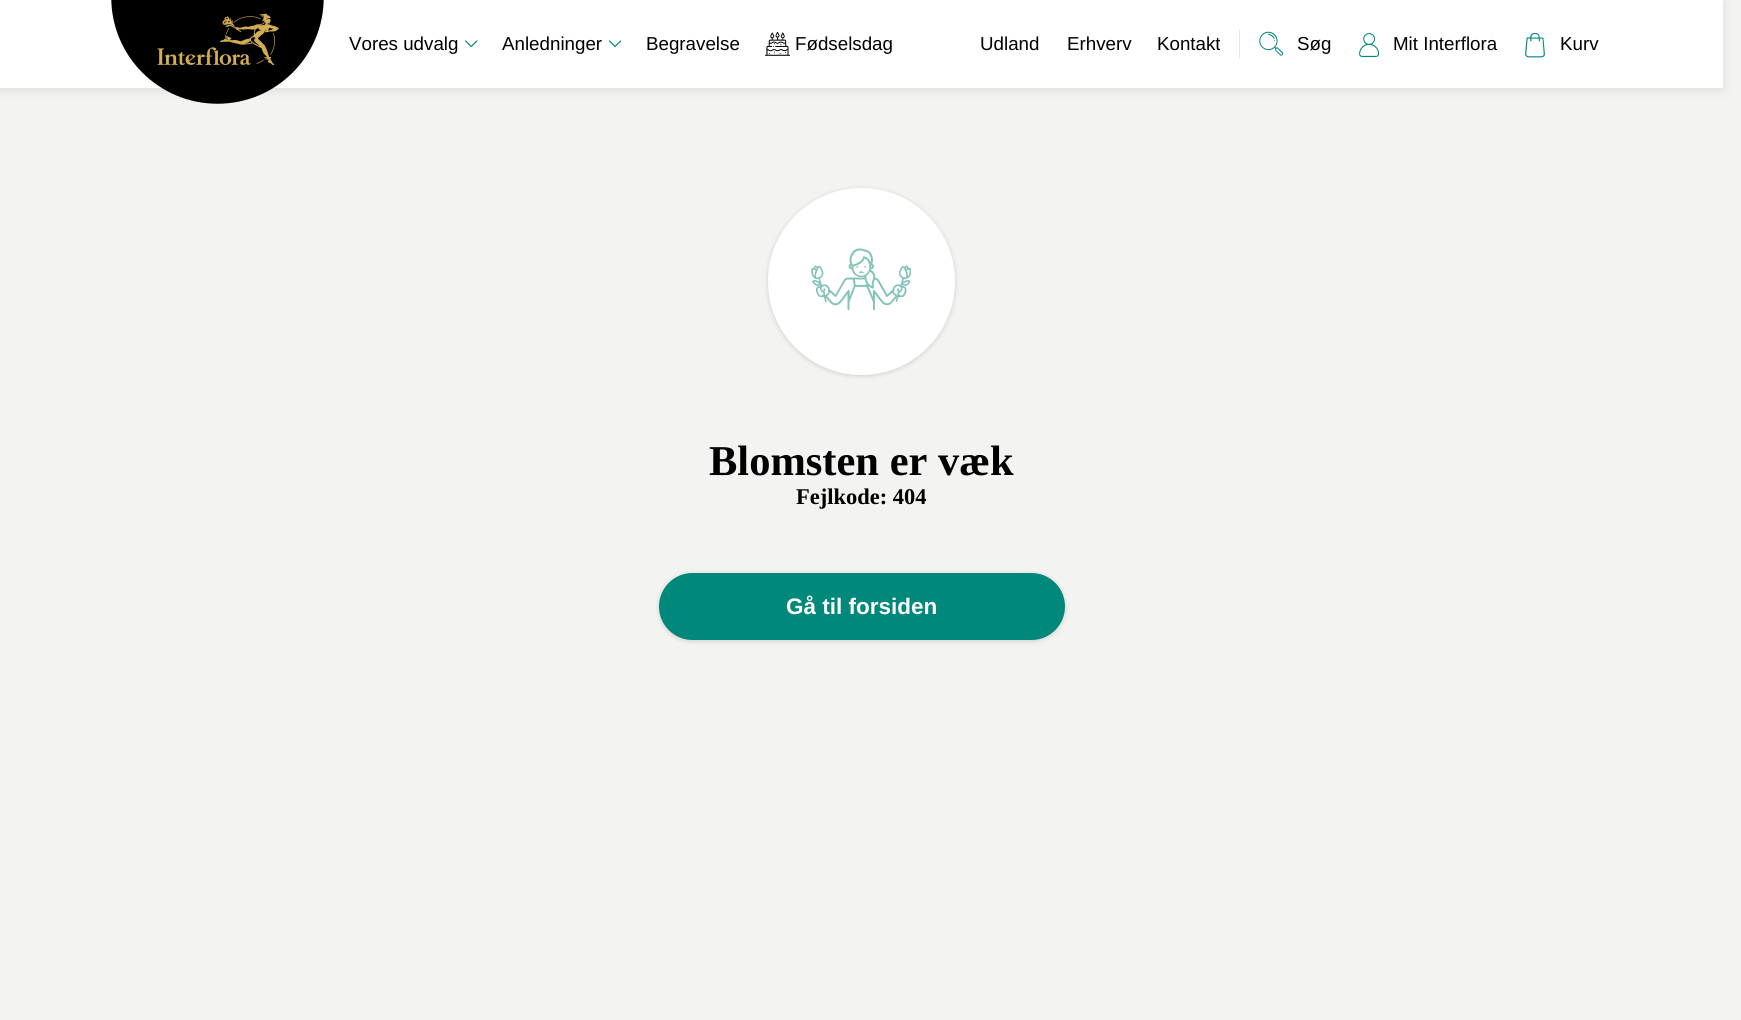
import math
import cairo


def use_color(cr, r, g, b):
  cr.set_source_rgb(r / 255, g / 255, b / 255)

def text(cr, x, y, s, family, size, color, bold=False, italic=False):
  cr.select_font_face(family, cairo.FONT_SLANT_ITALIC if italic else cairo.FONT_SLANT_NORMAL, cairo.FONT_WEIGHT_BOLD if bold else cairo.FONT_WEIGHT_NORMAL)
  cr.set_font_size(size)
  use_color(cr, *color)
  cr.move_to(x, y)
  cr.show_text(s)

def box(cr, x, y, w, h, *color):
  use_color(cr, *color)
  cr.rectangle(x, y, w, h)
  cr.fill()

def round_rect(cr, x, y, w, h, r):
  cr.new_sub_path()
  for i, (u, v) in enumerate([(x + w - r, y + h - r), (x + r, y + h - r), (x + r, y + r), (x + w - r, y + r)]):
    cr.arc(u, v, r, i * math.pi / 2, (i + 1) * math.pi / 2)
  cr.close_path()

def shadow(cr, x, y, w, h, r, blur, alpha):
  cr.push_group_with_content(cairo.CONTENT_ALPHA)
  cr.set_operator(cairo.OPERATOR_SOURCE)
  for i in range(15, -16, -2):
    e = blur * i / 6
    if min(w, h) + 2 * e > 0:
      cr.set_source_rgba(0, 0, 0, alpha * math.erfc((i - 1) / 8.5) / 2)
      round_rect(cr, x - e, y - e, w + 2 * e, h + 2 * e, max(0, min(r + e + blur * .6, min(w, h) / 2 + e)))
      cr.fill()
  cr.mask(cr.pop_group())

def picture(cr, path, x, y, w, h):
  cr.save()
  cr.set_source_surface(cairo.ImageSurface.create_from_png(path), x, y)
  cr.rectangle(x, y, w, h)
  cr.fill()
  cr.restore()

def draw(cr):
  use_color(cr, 243, 243, 241)
  cr.paint()
  use_color(cr, 0, 0, 0)
  shadow(cr, 0, 3, 1723, 87, 0, 5, 0.1)
  box(cr, 0, 0, 1723, 88, 255, 255, 255)
  picture(cr, "img_01.png", 111, 0, 213, 104)
  picture(cr, "img_02.png", 465, 40, 13, 8)
  picture(cr, "img_03.png", 609, 40, 12, 8)
  picture(cr, "img_04.png", 765, 31, 25, 25)
  box(cr, 1239, 30, 1, 28, 230, 230, 230)
  picture(cr, "img_05.png", 1259, 31, 25, 25)
  picture(cr, "img_06.png", 1359, 33, 21, 24)
  picture(cr, "img_07.png", 1525, 33, 20, 25)
  use_color(cr, 0, 0, 0)
  shadow(cr, 768, 189, 187, 187, 93.5, 2.5, 0.15)
  use_color(cr, 255, 255, 255)
  cr.arc(861.5, 281.5, 93.5, 0, 2 * math.pi)
  cr.fill()
  picture(cr, "img_08.png", 811, 248, 100, 63)
  use_color(cr, 0, 0, 0)
  shadow(cr, 659, 574, 406, 67, 33.5, 2.5, 0.15)
  use_color(cr, 0, 136, 123)
  round_rect(cr, 659, 573, 406, 67, 33.5)
  cr.fill()
  text(cr, 349, 50, "Vores udvalg", "Liberation Sans", 18.75, (0, 0, 0))
  text(cr, 502, 50, "Anledninger", "Liberation Sans", 18.75, (0, 0, 0))
  text(cr, 646, 50, "Begravelse", "Liberation Sans", 18.75, (0, 0, 0))
  text(cr, 795, 50, "Fødselsdag", "Liberation Sans", 18.75, (0, 0, 0))
  text(cr, 980, 50, "Udland", "Liberation Sans", 18.75, (0, 0, 0))
  text(cr, 1067, 50, "Erhverv", "Liberation Sans", 18.75, (0, 0, 0))
  cr.save()
  cr.rectangle(1156, 30, 64, 28)
  cr.clip()
  text(cr, 1157, 50, "Kontakt", "Liberation Sans", 18.75, (0, 0, 0))
  cr.restore()
  text(cr, 1297, 50, "Søg", "Liberation Sans", 18.75, (0, 0, 0))
  text(cr, 1393, 50, "Mit Interflora", "Liberation Sans", 18.75, (0, 0, 0))
  text(cr, 1560, 50, "Kurv", "Liberation Sans", 18.75, (0, 0, 0))
  text(cr, 709, 475, "Blomsten er væk", "Liberation Serif", 42.5, (0, 0, 0), bold=True)
  text(cr, 796, 504, "Fejlkode: 404", "Liberation Serif", 22.5, (0, 0, 0), bold=True)
  text(cr, 786, 614, "Gå til forsiden", "Liberation Sans", 22.5, (255, 255, 255), bold=True)


surface = cairo.ImageSurface(cairo.FORMAT_RGB24, 1741, 1020)
cr = cairo.Context(surface)
options = cairo.FontOptions()
options.set_hint_metrics(cairo.HINT_METRICS_OFF)
options.set_hint_style(cairo.HINT_STYLE_NONE)
cr.set_font_options(options)
cr.set_miter_limit(4)
draw(cr)
surface.write_to_png("out.png")
